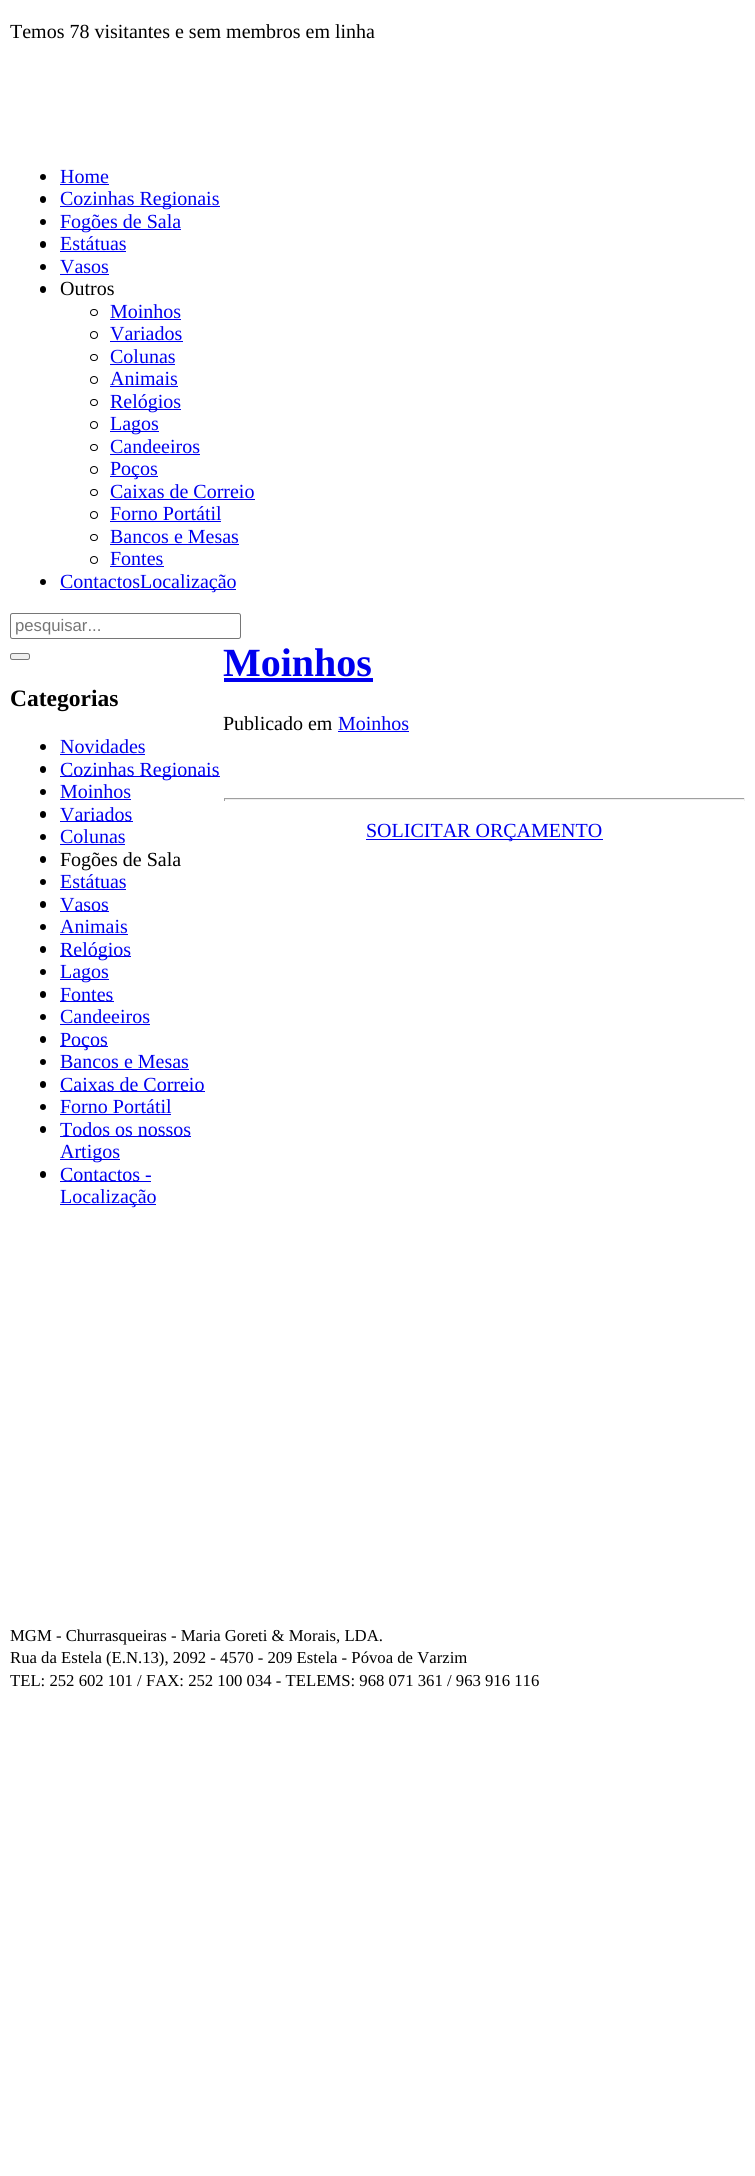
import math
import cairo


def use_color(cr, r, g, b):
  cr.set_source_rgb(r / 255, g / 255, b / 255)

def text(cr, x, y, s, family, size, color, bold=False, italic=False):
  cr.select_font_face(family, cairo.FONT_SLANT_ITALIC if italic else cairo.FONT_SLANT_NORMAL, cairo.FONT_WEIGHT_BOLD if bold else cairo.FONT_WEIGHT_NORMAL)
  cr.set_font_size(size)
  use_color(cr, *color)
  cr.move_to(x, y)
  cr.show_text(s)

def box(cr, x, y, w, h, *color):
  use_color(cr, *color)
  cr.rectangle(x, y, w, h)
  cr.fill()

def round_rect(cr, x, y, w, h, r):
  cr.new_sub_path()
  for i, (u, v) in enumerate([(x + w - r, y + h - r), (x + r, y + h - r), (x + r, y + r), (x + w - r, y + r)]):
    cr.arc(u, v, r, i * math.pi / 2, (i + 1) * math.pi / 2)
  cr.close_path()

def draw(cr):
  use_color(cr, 255, 255, 255)
  cr.paint()
  use_color(cr, 0, 0, 0)
  cr.arc(43, 177, 3, 0, 2 * math.pi)
  cr.fill()
  box(cr, 60, 184, 49, 1, 0, 0, 238)
  use_color(cr, 0, 0, 0)
  round_rect(cr, 40, 196, 6, 7, 3)
  cr.fill()
  box(cr, 60, 206, 160, 1, 0, 0, 238)
  use_color(cr, 0, 0, 0)
  cr.arc(43, 222, 3, 0, 2 * math.pi)
  cr.fill()
  box(cr, 60, 229, 121, 1, 0, 0, 238)
  use_color(cr, 0, 0, 0)
  round_rect(cr, 40, 241, 6, 7, 3)
  cr.fill()
  box(cr, 60, 251, 66, 1, 0, 0, 238)
  use_color(cr, 0, 0, 0)
  cr.arc(43, 267, 3, 0, 2 * math.pi)
  cr.fill()
  box(cr, 60, 274, 49, 1, 0, 0, 238)
  use_color(cr, 0, 0, 0)
  round_rect(cr, 40, 286, 6, 7, 3)
  cr.fill()
  round_rect(cr, 90.5, 309.5, 7, 6, 3)
  cr.set_line_width(1)
  cr.stroke()
  box(cr, 110, 319, 71, 1, 0, 0, 238)
  cr.arc(94, 335, 3.5, 0, 2 * math.pi)
  use_color(cr, 0, 0, 0)
  cr.stroke()
  box(cr, 110, 341, 73, 1, 0, 0, 238)
  round_rect(cr, 90.5, 354.5, 7, 6, 3)
  use_color(cr, 0, 0, 0)
  cr.stroke()
  box(cr, 110, 364, 65, 1, 0, 0, 238)
  cr.arc(94, 380, 3.5, 0, 2 * math.pi)
  use_color(cr, 0, 0, 0)
  cr.stroke()
  box(cr, 110, 386, 68, 1, 0, 0, 238)
  round_rect(cr, 90.5, 399.5, 7, 6, 3)
  use_color(cr, 0, 0, 0)
  cr.stroke()
  box(cr, 110, 409, 71, 1, 0, 0, 238)
  cr.arc(94, 425, 3.5, 0, 2 * math.pi)
  use_color(cr, 0, 0, 0)
  cr.stroke()
  box(cr, 110, 431, 49, 1, 0, 0, 238)
  round_rect(cr, 90.5, 444.5, 7, 6, 3)
  use_color(cr, 0, 0, 0)
  cr.stroke()
  box(cr, 110, 454, 90, 1, 0, 0, 238)
  cr.arc(94, 470, 3.5, 0, 2 * math.pi)
  use_color(cr, 0, 0, 0)
  cr.stroke()
  box(cr, 110, 476, 48, 1, 0, 0, 238)
  round_rect(cr, 90.5, 489.5, 7, 6, 3)
  use_color(cr, 0, 0, 0)
  cr.stroke()
  box(cr, 110, 499, 145, 1, 0, 0, 238)
  cr.arc(94, 515, 3.5, 0, 2 * math.pi)
  use_color(cr, 0, 0, 0)
  cr.stroke()
  box(cr, 110, 521, 111, 1, 0, 0, 238)
  round_rect(cr, 90.5, 534.5, 7, 6, 3)
  use_color(cr, 0, 0, 0)
  cr.stroke()
  box(cr, 110, 544, 129, 1, 0, 0, 238)
  cr.arc(94, 560, 3.5, 0, 2 * math.pi)
  use_color(cr, 0, 0, 0)
  cr.stroke()
  box(cr, 110, 566, 54, 1, 0, 0, 238)
  use_color(cr, 0, 0, 0)
  cr.arc(43, 582, 3, 0, 2 * math.pi)
  cr.fill()
  box(cr, 60, 589, 176, 1, 0, 0, 238)
  round_rect(cr, 10.5, 613.5, 230, 25, 2)
  use_color(cr, 118, 118, 118)
  cr.stroke()
  use_color(cr, 239, 239, 239)
  round_rect(cr, 10.5, 653.5, 19, 6, 2)
  cr.fill_preserve()
  use_color(cr, 118, 118, 118)
  cr.stroke()
  use_color(cr, 0, 0, 0)
  cr.arc(43, 747, 3, 0, 2 * math.pi)
  cr.fill()
  box(cr, 60, 754, 85, 1, 0, 0, 238)
  use_color(cr, 0, 0, 0)
  round_rect(cr, 40, 766, 6, 7, 3)
  cr.fill()
  box(cr, 60, 776, 160, 1, 0, 0, 238)
  use_color(cr, 0, 0, 0)
  cr.arc(43, 792, 3, 0, 2 * math.pi)
  cr.fill()
  box(cr, 60, 799, 71, 1, 0, 0, 238)
  use_color(cr, 0, 0, 0)
  round_rect(cr, 40, 811, 6, 7, 3)
  cr.fill()
  box(cr, 60, 821, 73, 1, 0, 0, 238)
  use_color(cr, 0, 0, 0)
  cr.arc(43, 837, 3, 0, 2 * math.pi)
  cr.fill()
  box(cr, 60, 844, 65, 1, 0, 0, 238)
  use_color(cr, 0, 0, 0)
  round_rect(cr, 40, 856, 6, 7, 3)
  cr.fill()
  cr.arc(43, 882, 3, 0, 2 * math.pi)
  cr.fill()
  box(cr, 60, 889, 66, 1, 0, 0, 238)
  use_color(cr, 0, 0, 0)
  round_rect(cr, 40, 901, 6, 7, 3)
  cr.fill()
  box(cr, 60, 911, 49, 1, 0, 0, 238)
  use_color(cr, 0, 0, 0)
  cr.arc(43, 927, 3, 0, 2 * math.pi)
  cr.fill()
  box(cr, 60, 934, 68, 1, 0, 0, 238)
  use_color(cr, 0, 0, 0)
  round_rect(cr, 40, 946, 6, 7, 3)
  cr.fill()
  box(cr, 60, 956, 71, 1, 0, 0, 238)
  use_color(cr, 0, 0, 0)
  cr.arc(43, 972, 3, 0, 2 * math.pi)
  cr.fill()
  box(cr, 60, 979, 49, 1, 0, 0, 238)
  use_color(cr, 0, 0, 0)
  round_rect(cr, 40, 991, 6, 7, 3)
  cr.fill()
  box(cr, 60, 1001, 54, 1, 0, 0, 238)
  use_color(cr, 0, 0, 0)
  cr.arc(43, 1017, 3, 0, 2 * math.pi)
  cr.fill()
  box(cr, 60, 1024, 90, 1, 0, 0, 238)
  use_color(cr, 0, 0, 0)
  round_rect(cr, 40, 1036, 6, 7, 3)
  cr.fill()
  box(cr, 60, 1046, 48, 1, 0, 0, 238)
  use_color(cr, 0, 0, 0)
  cr.arc(43, 1062, 3, 0, 2 * math.pi)
  cr.fill()
  box(cr, 60, 1069, 129, 1, 0, 0, 238)
  use_color(cr, 0, 0, 0)
  round_rect(cr, 40, 1081, 6, 7, 3)
  cr.fill()
  box(cr, 60, 1091, 145, 1, 0, 0, 238)
  use_color(cr, 0, 0, 0)
  cr.arc(43, 1107, 3, 0, 2 * math.pi)
  cr.fill()
  box(cr, 60, 1114, 111, 1, 0, 0, 238)
  use_color(cr, 0, 0, 0)
  round_rect(cr, 40, 1126, 6, 7, 3)
  cr.fill()
  box(cr, 60, 1136, 131, 1, 0, 0, 238)
  box(cr, 60, 1159, 60, 1, 0, 0, 238)
  use_color(cr, 0, 0, 0)
  round_rect(cr, 40, 1171, 6, 7, 3)
  cr.fill()
  box(cr, 60, 1181, 91, 1, 0, 0, 238)
  box(cr, 60, 1204, 96, 1, 0, 0, 238)
  box(cr, 224, 678, 149, 4, 0, 0, 238)
  box(cr, 338, 731, 71, 1, 0, 0, 238)
  box(cr, 224, 798, 521, 1, 159, 159, 159)
  box(cr, 744, 798, 1, 3, 238, 238, 238)
  box(cr, 224, 799, 521, 1, 238, 238, 238)
  box(cr, 224, 798, 1, 3, 159, 159, 159)
  box(cr, 366, 839, 237, 1, 0, 0, 238)
  text(cr, 10, 38, "Temos 78 visitantes e sem membros em linha", "Liberation Serif", 20, (0, 0, 0))
  text(cr, 60, 183, "Home", "Liberation Serif", 20, (0, 0, 238))
  text(cr, 60, 205, "Cozinhas Regionais", "Liberation Serif", 20, (0, 0, 238))
  text(cr, 60, 228, "Fogões de Sala", "Liberation Serif", 20, (0, 0, 238))
  text(cr, 60, 250, "Estátuas", "Liberation Serif", 20, (0, 0, 238))
  text(cr, 60, 273, "Vasos", "Liberation Serif", 20, (0, 0, 238))
  text(cr, 60, 295, "Outros", "Liberation Serif", 20, (0, 0, 0))
  text(cr, 110, 318, "Moinhos", "Liberation Serif", 20, (0, 0, 238))
  text(cr, 110, 340, "Variados", "Liberation Serif", 20, (0, 0, 238))
  text(cr, 110, 363, "Colunas", "Liberation Serif", 20, (0, 0, 238))
  text(cr, 110, 385, "Animais", "Liberation Serif", 20, (0, 0, 238))
  text(cr, 110, 408, "Relógios", "Liberation Serif", 20, (0, 0, 238))
  text(cr, 110, 430, "Lagos", "Liberation Serif", 20, (0, 0, 238))
  text(cr, 110, 453, "Candeeiros", "Liberation Serif", 20, (0, 0, 238))
  text(cr, 110, 475, "Poços", "Liberation Serif", 20, (0, 0, 238))
  text(cr, 110, 498, "Caixas de Correio", "Liberation Serif", 20, (0, 0, 238))
  text(cr, 110, 520, "Forno Portátil", "Liberation Serif", 20, (0, 0, 238))
  text(cr, 110, 543, "Bancos e Mesas", "Liberation Serif", 20, (0, 0, 238))
  text(cr, 110, 565, "Fontes", "Liberation Serif", 20, (0, 0, 238))
  text(cr, 60, 588, "ContactosLocalização", "Liberation Serif", 20, (0, 0, 238))
  text(cr, 15, 631, "pesquisar...", "Liberation Sans", 16.7, (117, 117, 117))
  text(cr, 10, 706, "Categorias", "Liberation Serif", 23.5, (0, 0, 0), bold=True)
  text(cr, 60, 753, "Novidades", "Liberation Serif", 20, (0, 0, 238))
  text(cr, 60, 776, "Cozinhas Regionais", "Liberation Serif", 20, (0, 0, 238))
  text(cr, 60, 798, "Moinhos", "Liberation Serif", 20, (0, 0, 238))
  text(cr, 60, 821, "Variados", "Liberation Serif", 20, (0, 0, 238))
  text(cr, 60, 843, "Colunas", "Liberation Serif", 20, (0, 0, 238))
  text(cr, 60, 866, "Fogões de Sala", "Liberation Serif", 20, (0, 0, 0))
  text(cr, 60, 888, "Estátuas", "Liberation Serif", 20, (0, 0, 238))
  text(cr, 60, 911, "Vasos", "Liberation Serif", 20, (0, 0, 238))
  text(cr, 60, 933, "Animais", "Liberation Serif", 20, (0, 0, 238))
  text(cr, 60, 956, "Relógios", "Liberation Serif", 20, (0, 0, 238))
  text(cr, 60, 978, "Lagos", "Liberation Serif", 20, (0, 0, 238))
  text(cr, 60, 1001, "Fontes", "Liberation Serif", 20, (0, 0, 238))
  text(cr, 60, 1023, "Candeeiros", "Liberation Serif", 20, (0, 0, 238))
  text(cr, 60, 1046, "Poços", "Liberation Serif", 20, (0, 0, 238))
  text(cr, 60, 1068, "Bancos e Mesas", "Liberation Serif", 20, (0, 0, 238))
  text(cr, 60, 1091, "Caixas de Correio", "Liberation Serif", 20, (0, 0, 238))
  text(cr, 60, 1113, "Forno Portátil", "Liberation Serif", 20, (0, 0, 238))
  text(cr, 60, 1136, "Todos os nossos", "Liberation Serif", 20, (0, 0, 238))
  text(cr, 60, 1158, "Artigos", "Liberation Serif", 20, (0, 0, 238))
  text(cr, 60, 1181, "Contactos -", "Liberation Serif", 20, (0, 0, 238))
  text(cr, 60, 1203, "Localização", "Liberation Serif", 20, (0, 0, 238))
  text(cr, 223, 676, "Moinhos", "Liberation Serif", 40, (0, 0, 238), bold=True)
  text(cr, 223, 730, "Publicado em", "Liberation Serif", 20, (0, 0, 0))
  text(cr, 338, 730, "Moinhos", "Liberation Serif", 20, (0, 0, 238))
  text(cr, 366, 837, "SOLICITAR ORÇAMENTO", "Liberation Serif", 20, (0, 0, 238))
  text(cr, 10, 1641, "MGM - Churrasqueiras - Maria Goreti & Morais, LDA.", "Liberation Serif", 16.7, (0, 0, 0))
  text(cr, 10, 1663, "Rua da Estela (E.N.13), 2092 - 4570 - 209 Estela - Póvoa de Varzim", "Liberation Serif", 16.7, (0, 0, 0))
  text(cr, 10, 1686, "TEL: 252 602 101 / FAX: 252 100 034 - TELEMS: 968 071 361 / 963 916 116", "Liberation Serif", 16.7, (0, 0, 0))


surface = cairo.ImageSurface(cairo.FORMAT_RGB24, 755, 2176)
cr = cairo.Context(surface)
options = cairo.FontOptions()
options.set_hint_metrics(cairo.HINT_METRICS_OFF)
options.set_hint_style(cairo.HINT_STYLE_NONE)
cr.set_font_options(options)
cr.set_miter_limit(4)
draw(cr)
surface.write_to_png("out.png")
